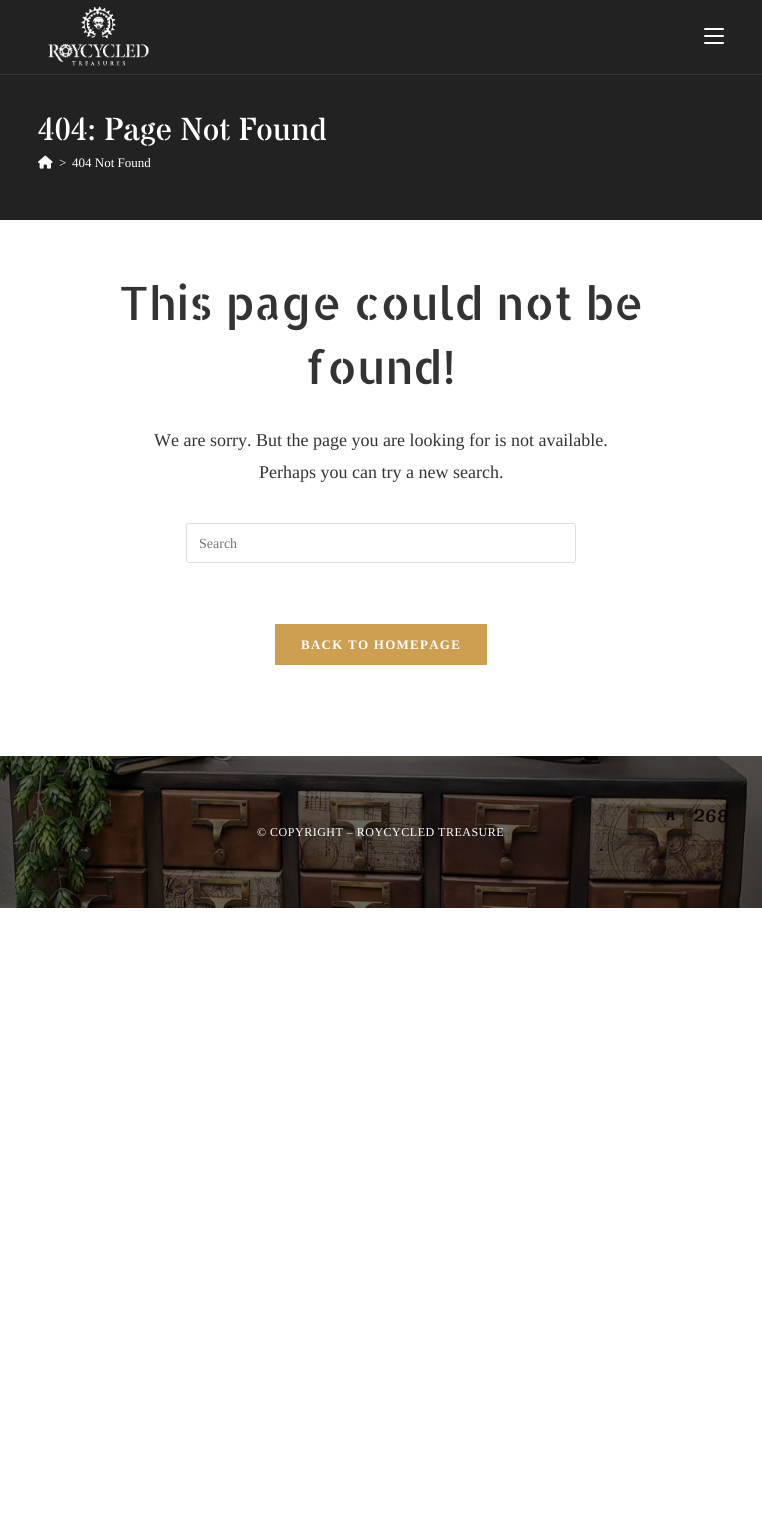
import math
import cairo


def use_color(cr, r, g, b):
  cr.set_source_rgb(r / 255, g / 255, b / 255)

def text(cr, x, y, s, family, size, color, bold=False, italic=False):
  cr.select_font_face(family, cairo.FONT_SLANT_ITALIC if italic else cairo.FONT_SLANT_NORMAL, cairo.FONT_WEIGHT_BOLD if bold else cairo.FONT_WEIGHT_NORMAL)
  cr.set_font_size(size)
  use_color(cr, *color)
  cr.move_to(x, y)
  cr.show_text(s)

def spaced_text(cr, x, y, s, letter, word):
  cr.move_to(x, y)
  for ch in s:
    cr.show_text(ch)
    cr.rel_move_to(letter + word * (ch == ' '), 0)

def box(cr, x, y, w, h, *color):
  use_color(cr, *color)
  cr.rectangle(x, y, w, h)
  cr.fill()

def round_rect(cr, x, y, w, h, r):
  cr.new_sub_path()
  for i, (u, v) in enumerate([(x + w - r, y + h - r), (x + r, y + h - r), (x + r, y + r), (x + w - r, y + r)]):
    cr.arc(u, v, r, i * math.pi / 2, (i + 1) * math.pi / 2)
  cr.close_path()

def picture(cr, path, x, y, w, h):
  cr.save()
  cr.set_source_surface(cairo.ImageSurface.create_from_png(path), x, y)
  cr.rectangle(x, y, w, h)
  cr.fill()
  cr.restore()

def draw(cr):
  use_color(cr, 255, 255, 255)
  cr.paint()
  box(cr, 0, 0, 762, 74, 34, 34, 34)
  box(cr, 0, 74, 762, 1, 56, 56, 56)
  picture(cr, "img_01.png", 48, 6, 101, 60)
  use_color(cr, 255, 255, 255)
  round_rect(cr, 704, 35, 20, 2, 1)
  cr.fill()
  round_rect(cr, 704, 28, 20, 2, 1)
  cr.fill()
  round_rect(cr, 704, 42, 20, 2, 1)
  cr.fill()
  box(cr, 0, 75, 762, 145, 34, 34, 34)
  picture(cr, "img_02.png", 38, 155, 15, 14)
  round_rect(cr, 186.5, 523.5, 389, 39, 2.5)
  use_color(cr, 221, 221, 221)
  cr.set_line_width(1)
  cr.stroke()
  box(cr, 275, 624, 212, 41, 206, 158, 81)
  picture(cr, "img_03.png", 0, 756, 762, 152)
  text(cr, 38, 140, "404: Page Not Found", "Stardos Stencil", 32, (255, 255, 255))
  text(cr, 59, 167, ">", "Liberation Serif", 13, (255, 255, 255))
  text(cr, 72, 167, "404 Not Found", "Liberation Serif", 13, (255, 255, 255))
  text(cr, 119, 320, "This page could not be", "Allerta Stencil", 46, (51, 51, 51))
  text(cr, 306, 384, "found!", "Allerta Stencil", 46, (51, 51, 51))
  text(cr, 154, 446, "We are sorry. But the page you are looking for is not available.", "Liberation Serif", 18, (51, 51, 51))
  text(cr, 259, 478, "Perhaps you can try a new search.", "Liberation Serif", 18, (51, 51, 51))
  text(cr, 199, 548, "Search", "Liberation Serif", 14, (117, 117, 117))
  cr.select_font_face("Liberation Serif", cairo.FONT_SLANT_NORMAL, cairo.FONT_WEIGHT_BOLD)
  cr.set_font_size(13)
  use_color(cr, 255, 255, 255)
  spaced_text(cr, 301, 649, "BACK TO HOMEPAGE", 1.25, 0)
  cr.select_font_face("Liberation Serif")
  cr.set_font_size(12)
  spaced_text(cr, 257, 836, "© COPYRIGHT – ROYCYCLED TREASURE", 0.5, 0)


surface = cairo.ImageSurface(cairo.FORMAT_RGB24, 762, 1518)
cr = cairo.Context(surface)
options = cairo.FontOptions()
options.set_hint_metrics(cairo.HINT_METRICS_OFF)
options.set_hint_style(cairo.HINT_STYLE_NONE)
cr.set_font_options(options)
cr.set_miter_limit(4)
draw(cr)
surface.write_to_png("out.png")
